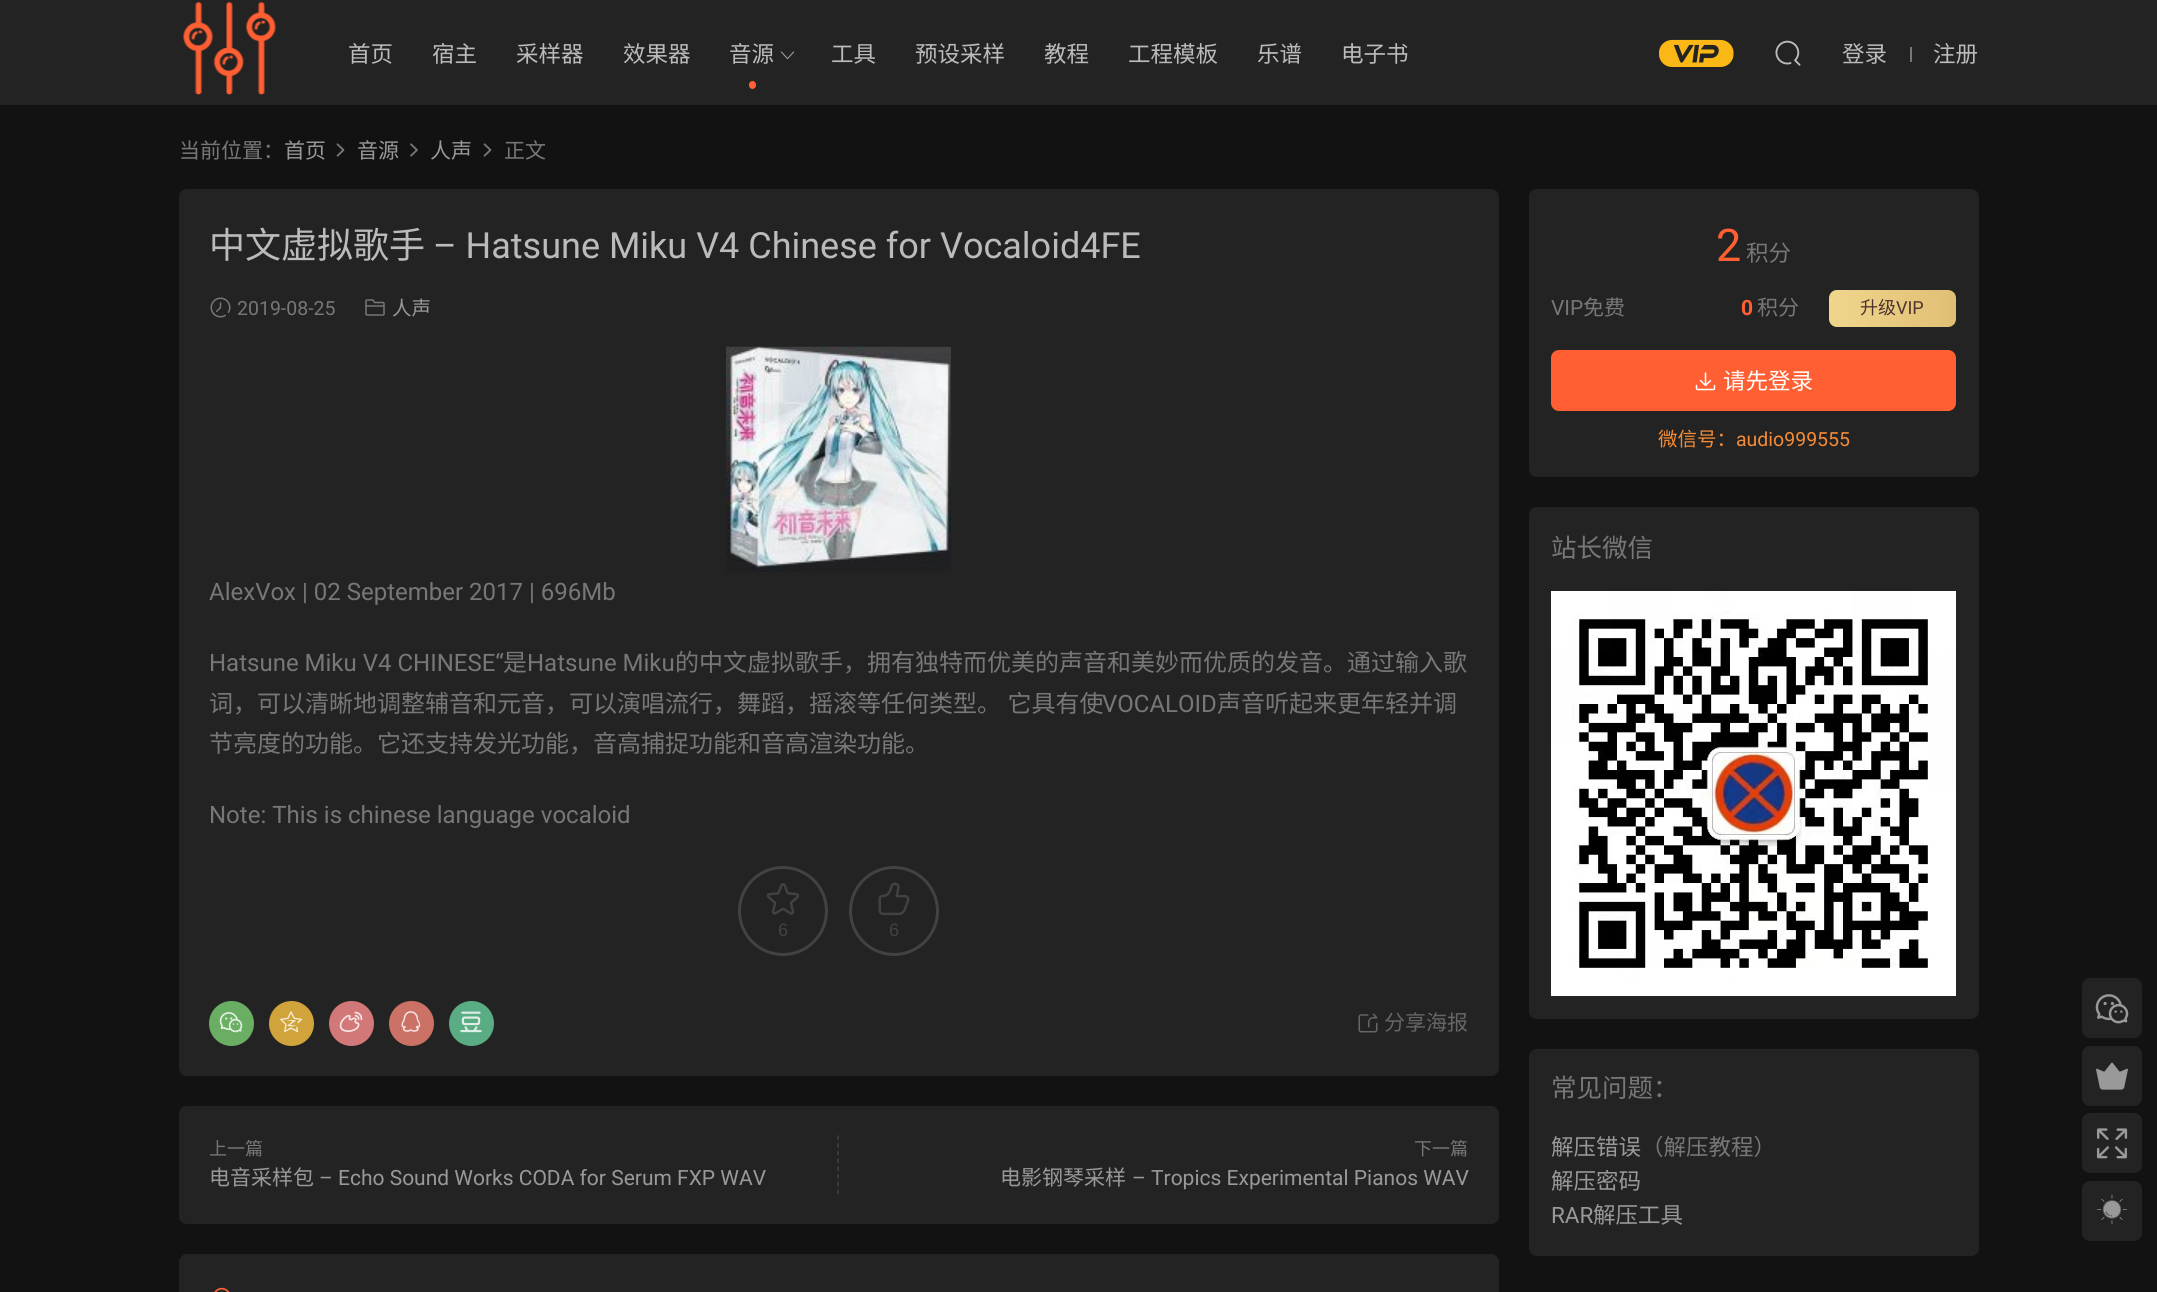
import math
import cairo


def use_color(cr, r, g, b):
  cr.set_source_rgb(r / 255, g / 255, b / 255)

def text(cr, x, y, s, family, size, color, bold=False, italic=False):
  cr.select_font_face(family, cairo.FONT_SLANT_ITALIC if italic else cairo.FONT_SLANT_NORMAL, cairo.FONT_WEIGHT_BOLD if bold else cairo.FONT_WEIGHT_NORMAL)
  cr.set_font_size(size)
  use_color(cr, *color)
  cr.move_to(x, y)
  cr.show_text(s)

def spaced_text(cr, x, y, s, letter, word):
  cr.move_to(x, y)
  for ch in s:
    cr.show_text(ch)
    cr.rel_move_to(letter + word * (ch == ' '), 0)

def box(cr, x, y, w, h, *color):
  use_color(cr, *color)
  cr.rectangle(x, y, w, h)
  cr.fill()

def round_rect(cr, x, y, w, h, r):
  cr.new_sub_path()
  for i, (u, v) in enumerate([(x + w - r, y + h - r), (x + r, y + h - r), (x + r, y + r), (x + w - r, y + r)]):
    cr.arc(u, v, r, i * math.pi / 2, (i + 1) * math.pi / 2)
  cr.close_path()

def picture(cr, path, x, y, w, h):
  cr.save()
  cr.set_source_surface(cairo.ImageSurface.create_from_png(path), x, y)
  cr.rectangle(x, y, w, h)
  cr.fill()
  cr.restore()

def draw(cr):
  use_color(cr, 18, 18, 18)
  cr.paint()
  box(cr, 0, 0, 2157, 105, 35, 35, 35)
  picture(cr, "img_01.png", 183, 1, 93, 94)
  use_color(cr, 255, 95, 51)
  round_rect(cr, 749, 81, 7, 8, 3.5)
  cr.fill()
  picture(cr, "img_02.png", 780, 51, 15, 9)
  picture(cr, "img_03.png", 1659, 39, 75, 28)
  picture(cr, "img_04.png", 1775, 40, 26, 26)
  box(cr, 1910, 47, 2, 15, 119, 119, 119)
  picture(cr, "img_05.png", 336, 143, 9, 14)
  picture(cr, "img_06.png", 410, 143, 8, 14)
  picture(cr, "img_05.png", 483, 143, 9, 14)
  use_color(cr, 35, 35, 35)
  round_rect(cr, 179, 189, 1320, 887, 8)
  cr.fill()
  picture(cr, "img_07.png", 210, 297, 21, 21)
  picture(cr, "img_08.png", 365, 299, 20, 17)
  picture(cr, "img_09.png", 726, 346, 225, 226)
  cr.arc(783, 911, 43.5, 0, 2 * math.pi)
  use_color(cr, 65, 66, 67)
  cr.set_line_width(3)
  cr.stroke()
  picture(cr, "img_10.png", 766, 883, 34, 32)
  cr.arc(894, 911, 43.5, 0, 2 * math.pi)
  cr.stroke()
  picture(cr, "img_11.png", 878, 882, 32, 34)
  use_color(cr, 105, 174, 98)
  cr.arc(231.5, 1023.5, 22.5, 0, 2 * math.pi)
  cr.fill()
  picture(cr, "img_12.png", 219, 1012, 24, 21)
  use_color(cr, 208, 164, 58)
  cr.arc(291.5, 1023.5, 22.5, 0, 2 * math.pi)
  cr.fill()
  picture(cr, "img_13.png", 280, 1011, 22, 22)
  use_color(cr, 211, 120, 120)
  cr.arc(351.5, 1023.5, 22.5, 0, 2 * math.pi)
  cr.fill()
  picture(cr, "img_14.png", 339, 1011, 24, 21)
  use_color(cr, 204, 113, 101)
  cr.arc(411.5, 1023.5, 22.5, 0, 2 * math.pi)
  cr.fill()
  picture(cr, "img_15.png", 401, 1011, 20, 21)
  use_color(cr, 89, 172, 131)
  cr.arc(471.5, 1023.5, 22.5, 0, 2 * math.pi)
  cr.fill()
  picture(cr, "img_16.png", 460, 1011, 22, 22)
  picture(cr, "img_17.png", 1358, 1013, 20, 20)
  use_color(cr, 35, 35, 35)
  round_rect(cr, 179, 1106, 1320, 118, 8)
  cr.fill()
  cr.new_path()
  cr.move_to(838, 1135.5)
  cr.line_to(838, 1194)
  use_color(cr, 65, 66, 67)
  cr.set_line_width(1.5)
  cr.set_dash([4.5, 3.21])
  cr.stroke()
  use_color(cr, 35, 35, 35)
  round_rect(cr, 179, 1254, 1320, 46, 8)
  cr.fill()
  picture(cr, "img_18.png", 214, 1287, 16, 5)
  round_rect(cr, 1529, 189, 450, 288, 8)
  cr.fill()
  gradient = cairo.LinearGradient(1829, 308, 1956, 308)
  gradient.add_color_stop_rgba(0, 0.941, 0.839, 0.553, 1)
  gradient.add_color_stop_rgba(1, 0.878, 0.749, 0.451, 1)
  cr.set_source(gradient)
  round_rect(cr, 1829, 290, 127, 37, 8)
  cr.fill()
  use_color(cr, 255, 95, 51)
  round_rect(cr, 1551, 350, 405, 61, 8)
  cr.fill()
  picture(cr, "img_19.png", 1695, 372, 21, 19)
  use_color(cr, 35, 35, 35)
  round_rect(cr, 1529, 507, 450, 512, 8)
  cr.fill()
  picture(cr, "img_20.png", 1551, 591, 405, 405)
  round_rect(cr, 1529, 1049, 450, 207, 8)
  cr.fill()
  round_rect(cr, 2082, 978, 60, 60, 8)
  cr.fill()
  picture(cr, "img_21.png", 2095, 994, 34, 30)
  round_rect(cr, 2082, 1046, 60, 60, 8)
  cr.fill()
  picture(cr, "img_22.png", 2096, 1062, 32, 28)
  round_rect(cr, 2082, 1113, 60, 60, 8)
  cr.fill()
  picture(cr, "img_23.png", 2096, 1128, 32, 31)
  round_rect(cr, 2082, 1181, 60, 60, 8)
  cr.fill()
  picture(cr, "img_24.png", 2097, 1194, 30, 31)
  text(cr, 348, 62, "首页", "Noto Sans CJK SC", 22.5, (187, 187, 187))
  text(cr, 432, 62, "宿主", "Noto Sans CJK SC", 22.5, (187, 187, 187))
  text(cr, 516, 62, "采样器", "Noto Sans CJK SC", 22.5, (187, 187, 187))
  text(cr, 623, 62, "效果器", "Noto Sans CJK SC", 22.5, (187, 187, 187))
  text(cr, 729, 62, "音源", "Noto Sans CJK SC", 22.5, (187, 187, 187))
  text(cr, 831, 62, "工具", "Noto Sans CJK SC", 22.5, (187, 187, 187))
  text(cr, 915, 62, "预设采样", "Noto Sans CJK SC", 22.5, (187, 187, 187))
  text(cr, 1044, 62, "教程", "Noto Sans CJK SC", 22.5, (187, 187, 187))
  text(cr, 1128, 62, "工程模板", "Noto Sans CJK SC", 22.5, (187, 187, 187))
  text(cr, 1257, 62, "乐谱", "Noto Sans CJK SC", 22.5, (187, 187, 187))
  text(cr, 1341, 62, "电子书", "Noto Sans CJK SC", 22.5, (187, 187, 187))
  text(cr, 1842, 62, "登录", "Noto Sans CJK SC", 22.5, (187, 187, 187))
  text(cr, 1933, 62, "注册", "Noto Sans CJK SC", 22.5, (187, 187, 187))
  text(cr, 179, 158, "当前位置：", "Noto Sans CJK SC", 21, (119, 119, 119))
  text(cr, 284, 158, "首页", "Noto Sans CJK SC", 21, (153, 153, 153))
  text(cr, 357, 158, "音源", "Noto Sans CJK SC", 21, (153, 153, 153))
  text(cr, 430, 158, "人声", "Noto Sans CJK SC", 21, (153, 153, 153))
  text(cr, 504, 158, "正文", "Noto Sans CJK SC", 21, (119, 119, 119))
  text(cr, 209, 258, "中文虚拟歌手", "Noto Sans CJK SC", 36, (187, 187, 187))
  text(cr, 433, 258, "– Hatsune Miku V4 Chinese for Vocaloid4FE", "Roboto", 36, (187, 187, 187))
  text(cr, 237, 315, "2019-08-25", "Roboto", 19.5, (119, 119, 119))
  text(cr, 392, 315, "人声", "Noto Sans CJK SC", 19.5, (153, 153, 153))
  text(cr, 209, 600, "AlexVox | 02 September 2017 | 696Mb", "Roboto", 24, (119, 119, 119))
  text(cr, 209, 671, "Hatsune Miku V4 CHINESE“", "Roboto", 24, (119, 119, 119))
  text(cr, 503, 671, "是", "Noto Sans CJK SC", 24, (119, 119, 119))
  text(cr, 527, 671, "Hatsune Miku", "Roboto", 24, (119, 119, 119))
  text(cr, 675, 671, "的中文虚拟歌手，拥有独特而优美的声音和美妙而优质的发音。通过输入歌", "Noto Sans CJK SC", 24, (119, 119, 119))
  spaced_text(cr, 209, 712, "词，可以清晰地调整辅音和元音，可以演唱流行，舞蹈，摇滚等任何类型。 它具有使", 0, 1)
  text(cr, 1102, 712, "VOCALOID", "Roboto", 24, (119, 119, 119))
  text(cr, 1217, 712, "声音听起来更年轻并调", "Noto Sans CJK SC", 24, (119, 119, 119))
  text(cr, 209, 752, "节亮度的功能。它还支持发光功能，音高捕捉功能和音高渲染功能。", "Noto Sans CJK SC", 24, (119, 119, 119))
  text(cr, 209, 823, "Note: This is chinese language vocaloid", "Roboto", 24, (119, 119, 119))
  text(cr, 778, 936, "6", "Liberation Sans", 18, (65, 66, 67))
  text(cr, 889, 936, "6", "Liberation Sans", 18, (65, 66, 67))
  text(cr, 1384, 1030, "分享海报", "Noto Sans CJK SC", 21, (102, 102, 102))
  text(cr, 209, 1155, "上一篇", "Noto Sans CJK SC", 18, (119, 119, 119))
  text(cr, 209, 1185, "电音采样包", "Noto Sans CJK SC", 21, (153, 153, 153))
  text(cr, 319, 1185, "– Echo Sound Works CODA for Serum FXP WAV", "Roboto", 21, (153, 153, 153))
  text(cr, 1414, 1155, "下一篇", "Noto Sans CJK SC", 18, (119, 119, 119))
  text(cr, 1000, 1185, "电影钢琴采样", "Noto Sans CJK SC", 21, (153, 153, 153))
  text(cr, 1132, 1185, "– Tropics Experimental Pianos WAV", "Roboto", 21, (153, 153, 153))
  text(cr, 1716, 261, "2", "Roboto", 45, (255, 95, 51))
  text(cr, 1746, 261, "积分", "Noto Sans CJK SC", 22.5, (119, 119, 119))
  text(cr, 1551, 315, "VIP", "Roboto", 21, (119, 119, 119))
  text(cr, 1583, 315, "免费", "Noto Sans CJK SC", 21, (119, 119, 119))
  text(cr, 1741, 315, "0", "Roboto", 21, (255, 95, 51), bold=True)
  text(cr, 1757, 315, "积分", "Noto Sans CJK SC", 21, (119, 119, 119))
  text(cr, 1860, 314, "升级", "Noto Sans CJK SC", 18, (78, 52, 46))
  text(cr, 1896, 314, "VIP", "Roboto", 18, (78, 52, 46))
  text(cr, 1723, 389, "请先登录", "Noto Sans CJK SC", 22.5, (255, 255, 255))
  text(cr, 1658, 446, "微信号：", "Noto Sans CJK SC", 19.5, (245, 139, 54))
  text(cr, 1736, 446, "audio999555", "Roboto", 19.5, (245, 139, 54))
  text(cr, 1551, 557, "站长微信", "Noto Sans CJK SC", 25.5, (119, 119, 119))
  text(cr, 1551, 1097, "常见问题：", "Noto Sans CJK SC", 25.5, (119, 119, 119))
  text(cr, 1551, 1155, "解压错误", "Noto Sans CJK SC", 22.5, (153, 153, 153))
  text(cr, 1641, 1155, "（解压教程）", "Noto Sans CJK SC", 22.5, (119, 119, 119))
  text(cr, 1551, 1189, "解压密码", "Noto Sans CJK SC", 22.5, (153, 153, 153))
  text(cr, 1551, 1223, "RAR", "Roboto", 22.5, (153, 153, 153))
  text(cr, 1593, 1223, "解压工具", "Noto Sans CJK SC", 22.5, (153, 153, 153))


surface = cairo.ImageSurface(cairo.FORMAT_RGB24, 2157, 1292)
cr = cairo.Context(surface)
options = cairo.FontOptions()
options.set_hint_metrics(cairo.HINT_METRICS_OFF)
options.set_hint_style(cairo.HINT_STYLE_NONE)
cr.set_font_options(options)
cr.set_miter_limit(4)
draw(cr)
surface.write_to_png("out.png")
